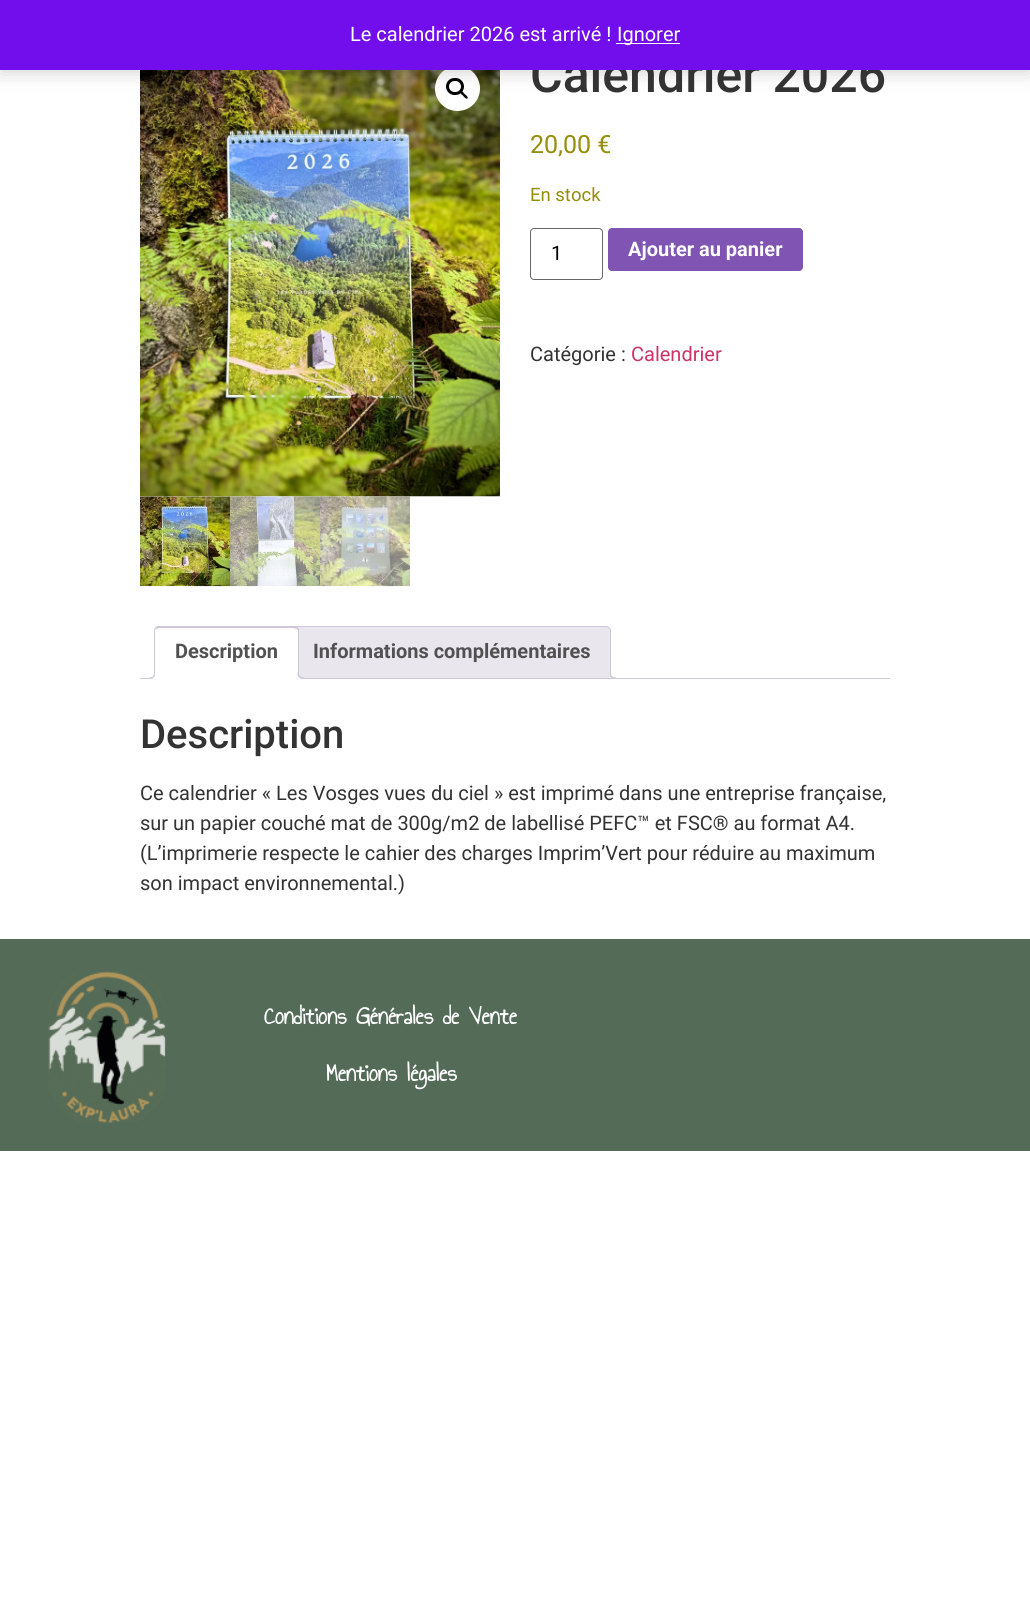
import math
import cairo


def use_color(cr, r, g, b):
  cr.set_source_rgb(r / 255, g / 255, b / 255)

def text(cr, x, y, s, family, size, color, bold=False, italic=False):
  cr.select_font_face(family, cairo.FONT_SLANT_ITALIC if italic else cairo.FONT_SLANT_NORMAL, cairo.FONT_WEIGHT_BOLD if bold else cairo.FONT_WEIGHT_NORMAL)
  cr.set_font_size(size)
  use_color(cr, *color)
  cr.move_to(x, y)
  cr.show_text(s)

def box(cr, x, y, w, h, *color):
  use_color(cr, *color)
  cr.rectangle(x, y, w, h)
  cr.fill()

def round_rect(cr, x, y, w, h, r):
  cr.new_sub_path()
  for i, (u, v) in enumerate([(x + w - r, y + h - r), (x + r, y + h - r), (x + r, y + r), (x + w - r, y + r)]):
    cr.arc(u, v, r, i * math.pi / 2, (i + 1) * math.pi / 2)
  cr.close_path()

def shadow(cr, x, y, w, h, r, blur, alpha):
  cr.push_group_with_content(cairo.CONTENT_ALPHA)
  cr.set_operator(cairo.OPERATOR_SOURCE)
  for i in range(15, -16, -2):
    e = blur * i / 6
    if min(w, h) + 2 * e > 0:
      cr.set_source_rgba(0, 0, 0, alpha * math.erfc((i - 1) / 8.5) / 2)
      round_rect(cr, x - e, y - e, w + 2 * e, h + 2 * e, max(0, min(r + e + blur * .6, min(w, h) / 2 + e)))
      cr.fill()
  cr.mask(cr.pop_group())

def picture(cr, path, x, y, w, h):
  cr.save()
  cr.set_source_surface(cairo.ImageSurface.create_from_png(path), x, y)
  cr.rectangle(x, y, w, h)
  cr.fill()
  cr.restore()

def draw(cr):
  use_color(cr, 255, 255, 255)
  cr.paint()
  picture(cr, "img_02.png", 140, 496, 90, 91)
  picture(cr, "img_01.png", 140, 70, 360, 427)
  use_color(cr, 255, 255, 255)
  cr.arc(457.5, 88.5, 22.5, 0, 2 * math.pi)
  cr.fill()
  round_rect(cr, 447.5, 79.5, 15, 14, 7)
  use_color(cr, 0, 0, 0)
  cr.set_line_width(3)
  cr.stroke()
  cr.new_path()
  cr.move_to(460, 91)
  cr.curve_to(461.5, 90, 464, 93, 464.5, 94)
  cr.curve_to(465.5, 94.5, 468.5, 97, 467.5, 98.5)
  cr.curve_to(466, 99.5, 463.5, 96.5, 463, 95.5)
  cr.curve_to(462, 95, 459, 92.5, 460, 91)
  cr.close_path()
  cr.fill()
  use_color(cr, 0, 0, 0)
  shadow(cr, 0, 1, 1030, 70, 0, 10, 0.2)
  picture(cr, "img_03.png", 230, 496, 90, 91)
  picture(cr, "img_04.png", 320, 496, 90, 91)
  round_rect(cr, 530.5, 228.5, 72, 51, 3.5)
  use_color(cr, 102, 102, 102)
  cr.set_line_width(1)
  cr.stroke()
  use_color(cr, 127, 84, 179)
  round_rect(cr, 608, 228, 195, 43, 4)
  cr.fill()
  use_color(cr, 233, 230, 237)
  cr.new_path()
  cr.move_to(296, 626.5)
  cr.line_to(606, 626.5)
  cr.curve_to(608.5, 626.5, 610.5, 628.5, 610.5, 631)
  cr.line_to(610.5, 678.5)
  cr.line_to(291.5, 678.5)
  cr.line_to(291.5, 631)
  cr.curve_to(291.5, 628.5, 293.5, 626.5, 296, 626.5)
  cr.close_path()
  cr.fill_preserve()
  use_color(cr, 207, 200, 216)
  cr.stroke()
  cr.save()
  cr.rectangle(140, 626, 750, 53)
  cr.clip()
  use_color(cr, 233, 230, 237)
  cr.new_path()
  cr.move_to(608, 675)
  cr.curve_to(608, 679, 610, 681, 614, 681)
  cr.line_to(614, 678.5)
  cr.curve_to(612, 678.5, 610.5, 677, 610, 675)
  cr.close_path()
  cr.fill()
  cr.restore()
  cr.set_fill_rule(cairo.FILL_RULE_EVEN_ODD)
  cr.new_path()
  cr.move_to(610, 672.5)
  cr.line_to(616, 672.5)
  cr.line_to(616, 679)
  cr.curve_to(613, 679, 610, 677.5, 610, 674)
  cr.close_path()
  cr.move_to(611, 672.5)
  cr.line_to(616, 672.5)
  cr.line_to(616, 677.5)
  cr.curve_to(614, 677.5, 611, 676.5, 611, 674)
  cr.close_path()
  cr.fill()
  box(cr, 140, 678, 750, 1, 207, 200, 216)
  use_color(cr, 255, 255, 255)
  cr.new_path()
  cr.move_to(159, 626)
  cr.line_to(294, 626)
  cr.curve_to(297, 626, 299, 628, 299, 631)
  cr.line_to(299, 679)
  cr.line_to(154, 679)
  cr.line_to(154, 631)
  cr.curve_to(154, 628, 156, 626, 159, 626)
  cr.close_path()
  cr.fill()
  use_color(cr, 207, 200, 216)
  cr.set_fill_rule(cairo.FILL_RULE_WINDING)
  cr.new_path()
  cr.move_to(159, 628)
  cr.line_to(156, 629)
  cr.line_to(155, 628)
  cr.line_to(157, 626)
  cr.line_to(296, 626)
  cr.line_to(298, 627)
  cr.line_to(296, 629)
  cr.line_to(294, 628)
  cr.close_path()
  cr.fill()
  cr.new_path()
  cr.move_to(298, 627)
  cr.line_to(299, 629)
  cr.line_to(299, 679)
  cr.line_to(298, 678)
  cr.line_to(298, 630)
  cr.line_to(296, 629)
  cr.close_path()
  cr.fill()
  use_color(cr, 255, 255, 255)
  cr.new_path()
  cr.move_to(299, 679)
  cr.line_to(154, 679)
  cr.line_to(155, 678)
  cr.line_to(298, 678)
  cr.close_path()
  cr.fill()
  use_color(cr, 207, 200, 216)
  cr.new_path()
  cr.move_to(154, 678)
  cr.line_to(154, 631)
  cr.curve_to(154, 630, 154, 628, 155, 628)
  cr.line_to(156, 629)
  cr.line_to(155, 630)
  cr.line_to(155, 678)
  cr.close_path()
  cr.fill()
  cr.save()
  cr.rectangle(140, 626, 750, 53)
  cr.clip()
  use_color(cr, 255, 255, 255)
  cr.new_path()
  cr.move_to(151, 678.5)
  cr.line_to(151, 681)
  cr.curve_to(155.5, 681, 158, 680, 158, 675)
  cr.line_to(155, 675)
  cr.curve_to(154.5, 677, 153, 678.5, 151, 678.5)
  cr.close_path()
  cr.fill()
  cr.restore()
  cr.set_fill_rule(cairo.FILL_RULE_EVEN_ODD)
  cr.new_path()
  cr.move_to(149, 672.5)
  cr.line_to(155, 672.5)
  cr.curve_to(155, 677, 153, 679, 149, 679)
  cr.close_path()
  cr.move_to(149, 672.5)
  cr.line_to(154, 672.5)
  cr.curve_to(154, 676, 152.5, 677.5, 149, 677.5)
  cr.close_path()
  cr.fill()
  cr.save()
  cr.set_fill_rule(cairo.FILL_RULE_WINDING)
  cr.rectangle(140, 626, 750, 53)
  cr.clip()
  use_color(cr, 255, 255, 255)
  cr.new_path()
  cr.move_to(295, 675)
  cr.curve_to(295, 679, 297, 681, 301, 681)
  cr.line_to(301, 678.5)
  cr.curve_to(299.5, 678, 298, 676.5, 297.5, 675)
  cr.close_path()
  cr.fill()
  cr.restore()
  cr.new_path()
  cr.move_to(297.5, 672.5)
  cr.line_to(304, 672.5)
  cr.line_to(304, 679)
  cr.curve_to(300.5, 679, 297.5, 677.5, 297.5, 674)
  cr.close_path()
  cr.move_to(299, 672.5)
  cr.line_to(304, 672.5)
  cr.line_to(304, 677.5)
  cr.curve_to(301.5, 677.5, 299, 676.5, 299, 674)
  cr.close_path()
  cr.fill()
  box(cr, 0, 939, 1030, 212, 84, 107, 88)
  picture(cr, "img_05.png", 48, 971, 118, 152)
  text(cr, 530, 92, "Calendrier 2026", "Roboto Medium", 50, (51, 51, 51))
  box(cr, 0, 0, 1030, 70, 114, 14, 236)
  box(cr, 616, 43, 64, 1, 252, 251, 254)
  text(cr, 617, 41, "Ignorer", "Roboto", 20, (255, 255, 255))
  text(cr, 350, 41, "Le calendrier 2026 est arrivé !", "Roboto", 20, (255, 255, 255))
  text(cr, 530, 153, "20,00 €", "Roboto", 25, (149, 142, 9))
  text(cr, 530, 201, "En stock", "Roboto", 18.5, (149, 142, 9))
  text(cr, 551, 260, "1", "Roboto", 20, (0, 0, 0))
  text(cr, 628, 256, "Ajouter au panier", "Roboto", 20, (255, 255, 255), bold=True)
  text(cr, 530, 361, "Catégorie :", "Roboto", 20, (51, 51, 51))
  text(cr, 631, 361, "Calendrier", "Roboto", 20, (204, 51, 102))
  text(cr, 175, 658, "Description", "Roboto", 20, (81, 81, 81), bold=True)
  text(cr, 313, 658, "Informations complémentaires", "Roboto", 20, (81, 81, 81), bold=True)
  text(cr, 140, 748, "Description", "Roboto Medium", 40, (51, 51, 51))
  text(cr, 140, 800, "Ce calendrier « Les Vosges vues du ciel » est imprimé dans une entreprise française,", "Roboto", 20, (51, 51, 51))
  text(cr, 140, 830, "sur un papier couché mat de 300g/m2 de labellisé PEFC™ et FSC® au format A4.", "Roboto", 20, (51, 51, 51))
  text(cr, 140, 860, "(L’imprimerie respecte le cahier des charges Imprim’Vert pour réduire au maximum", "Roboto", 20, (51, 51, 51))
  text(cr, 140, 890, "son impact environnemental.)", "Roboto", 20, (51, 51, 51))
  text(cr, 264, 1024, "Conditions Générales de Vente", "Annie Use Your Telescope", 25, (255, 255, 255), bold=True)
  text(cr, 326, 1081, "Mentions légales", "Annie Use Your Telescope", 25, (255, 255, 255), bold=True)


surface = cairo.ImageSurface(cairo.FORMAT_RGB24, 1030, 1605)
cr = cairo.Context(surface)
options = cairo.FontOptions()
options.set_hint_metrics(cairo.HINT_METRICS_OFF)
options.set_hint_style(cairo.HINT_STYLE_NONE)
cr.set_font_options(options)
cr.set_miter_limit(4)
draw(cr)
surface.write_to_png("out.png")
